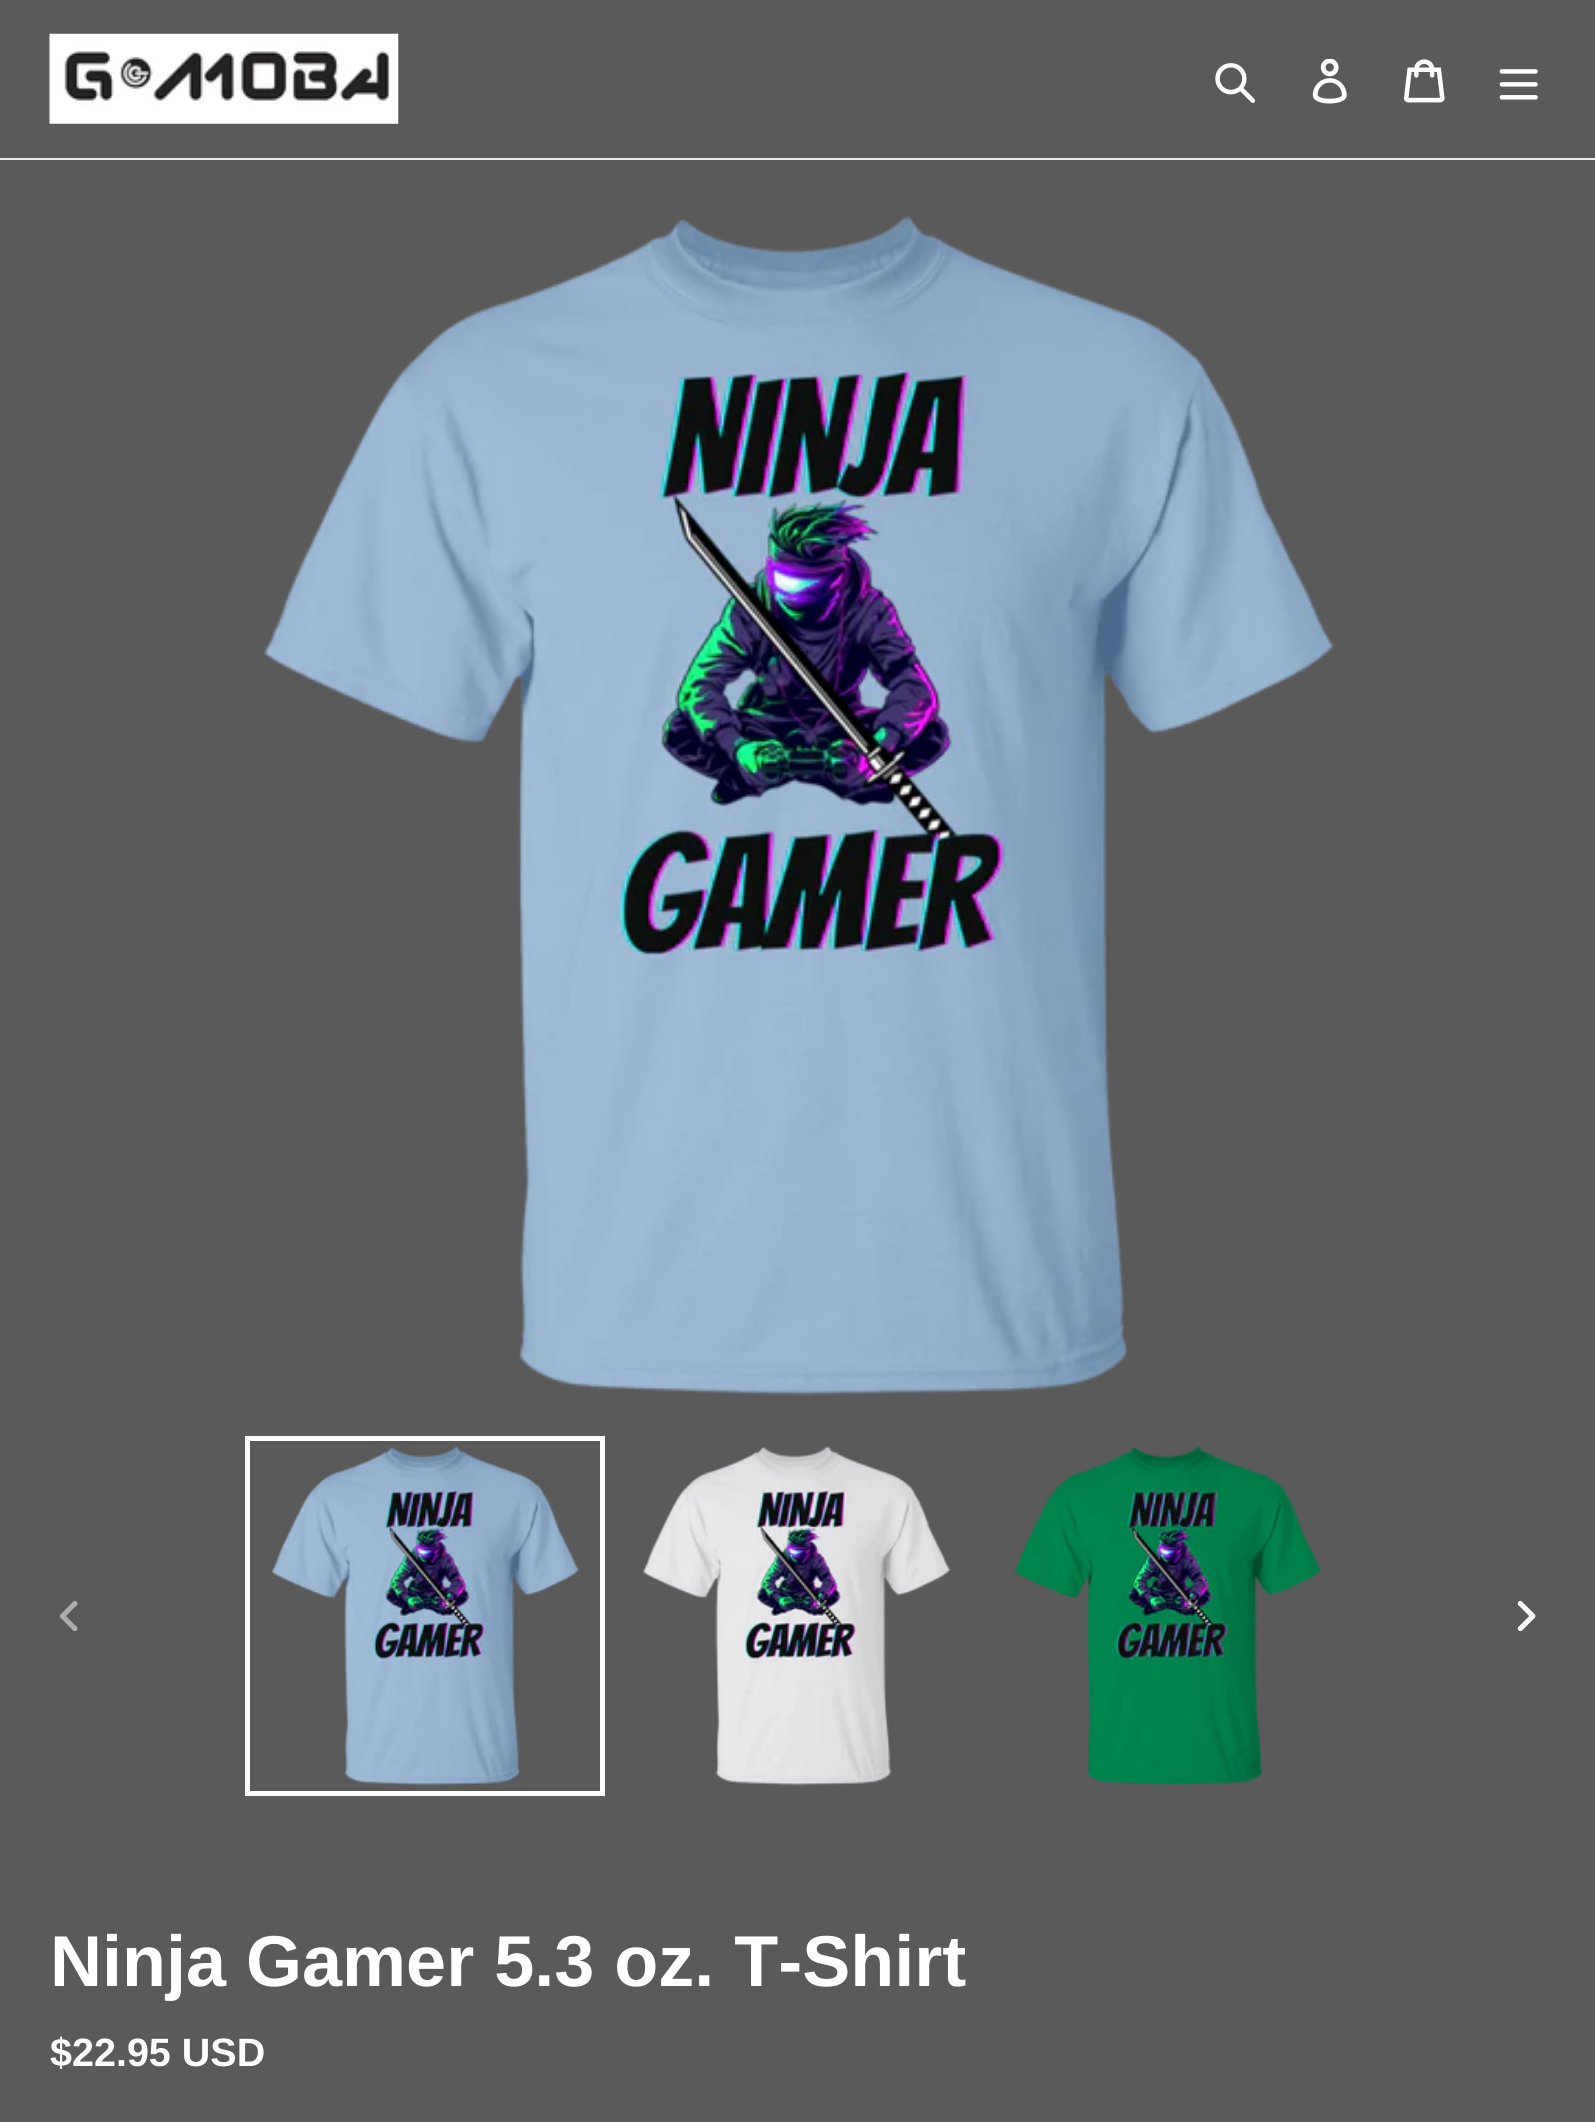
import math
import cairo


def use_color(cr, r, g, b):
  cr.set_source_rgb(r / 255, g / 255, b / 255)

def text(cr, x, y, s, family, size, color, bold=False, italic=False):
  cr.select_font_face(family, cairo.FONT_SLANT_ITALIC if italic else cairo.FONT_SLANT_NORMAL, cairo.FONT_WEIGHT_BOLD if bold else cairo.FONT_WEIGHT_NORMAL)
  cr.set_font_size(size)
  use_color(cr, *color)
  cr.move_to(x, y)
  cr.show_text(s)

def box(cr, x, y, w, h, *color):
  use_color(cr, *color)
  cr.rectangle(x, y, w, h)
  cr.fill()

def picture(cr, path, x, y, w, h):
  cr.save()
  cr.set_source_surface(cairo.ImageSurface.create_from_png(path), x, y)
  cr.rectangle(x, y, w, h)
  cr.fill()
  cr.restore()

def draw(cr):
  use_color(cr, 91, 90, 90)
  cr.paint()
  box(cr, 0, 158, 1595, 2, 235, 235, 235)
  picture(cr, "img_01.png", 49, 33, 350, 91)
  picture(cr, "img_02.png", 1215, 63, 41, 40)
  picture(cr, "img_03.png", 1312, 59, 35, 45)
  picture(cr, "img_04.png", 1404, 59, 41, 44)
  picture(cr, "img_05.png", 1499, 69, 39, 31)
  picture(cr, "img_06.png", 264, 215, 1070, 1181)
  picture(cr, "img_07.png", 59, 1601, 19, 30)
  cr.rectangle(247.5, 1438.5, 355, 355)
  use_color(cr, 255, 255, 255)
  cr.set_line_width(5)
  cr.stroke()
  picture(cr, "img_08.png", 271, 1446, 309, 340)
  picture(cr, "img_09.png", 642, 1446, 309, 340)
  picture(cr, "img_10.png", 1013, 1446, 309, 340)
  picture(cr, "img_11.png", 1517, 1600, 19, 31)
  text(cr, 50, 1986, "Ninja Gamer 5.3 oz. T-Shirt", "Liberation Sans", 72, (255, 255, 255), bold=True)
  text(cr, 50, 2066, "$22.95 USD", "Liberation Sans", 39.5, (255, 255, 255), bold=True)


surface = cairo.ImageSurface(cairo.FORMAT_RGB24, 1595, 2122)
cr = cairo.Context(surface)
options = cairo.FontOptions()
options.set_hint_metrics(cairo.HINT_METRICS_OFF)
options.set_hint_style(cairo.HINT_STYLE_NONE)
cr.set_font_options(options)
cr.set_miter_limit(4)
draw(cr)
surface.write_to_png("out.png")
